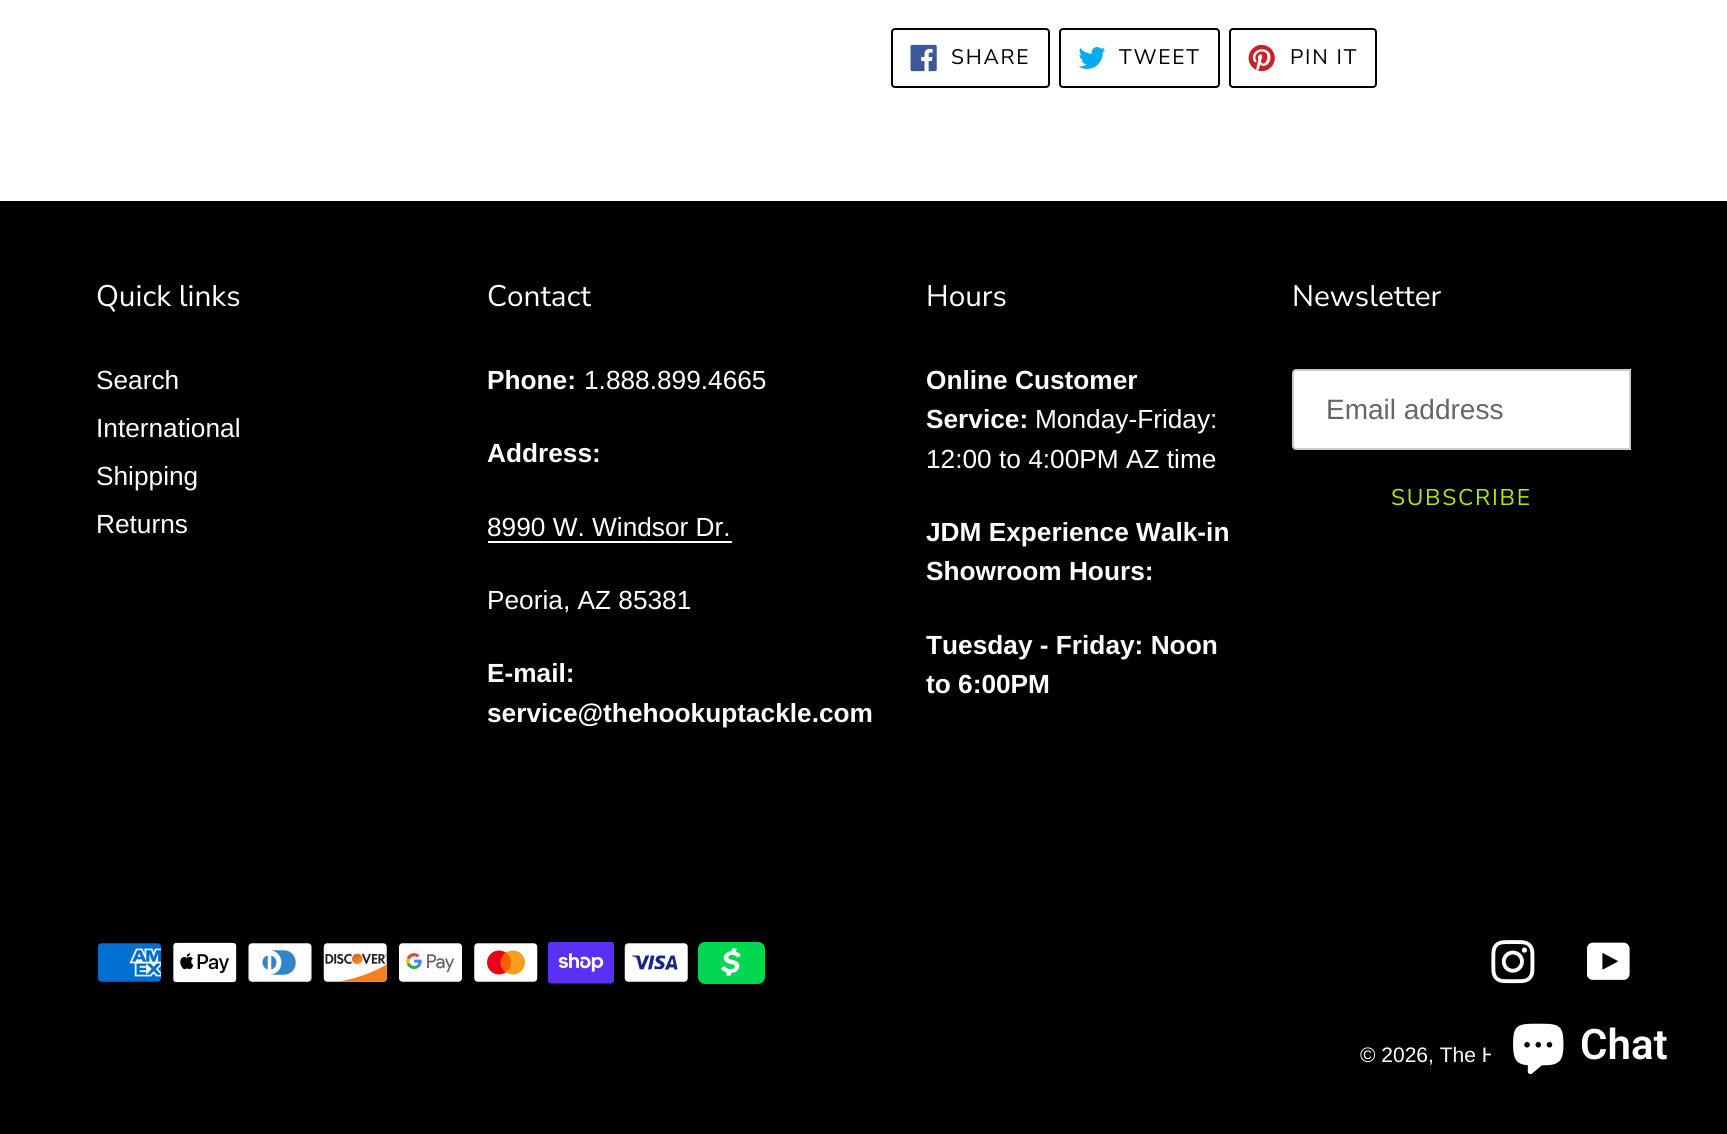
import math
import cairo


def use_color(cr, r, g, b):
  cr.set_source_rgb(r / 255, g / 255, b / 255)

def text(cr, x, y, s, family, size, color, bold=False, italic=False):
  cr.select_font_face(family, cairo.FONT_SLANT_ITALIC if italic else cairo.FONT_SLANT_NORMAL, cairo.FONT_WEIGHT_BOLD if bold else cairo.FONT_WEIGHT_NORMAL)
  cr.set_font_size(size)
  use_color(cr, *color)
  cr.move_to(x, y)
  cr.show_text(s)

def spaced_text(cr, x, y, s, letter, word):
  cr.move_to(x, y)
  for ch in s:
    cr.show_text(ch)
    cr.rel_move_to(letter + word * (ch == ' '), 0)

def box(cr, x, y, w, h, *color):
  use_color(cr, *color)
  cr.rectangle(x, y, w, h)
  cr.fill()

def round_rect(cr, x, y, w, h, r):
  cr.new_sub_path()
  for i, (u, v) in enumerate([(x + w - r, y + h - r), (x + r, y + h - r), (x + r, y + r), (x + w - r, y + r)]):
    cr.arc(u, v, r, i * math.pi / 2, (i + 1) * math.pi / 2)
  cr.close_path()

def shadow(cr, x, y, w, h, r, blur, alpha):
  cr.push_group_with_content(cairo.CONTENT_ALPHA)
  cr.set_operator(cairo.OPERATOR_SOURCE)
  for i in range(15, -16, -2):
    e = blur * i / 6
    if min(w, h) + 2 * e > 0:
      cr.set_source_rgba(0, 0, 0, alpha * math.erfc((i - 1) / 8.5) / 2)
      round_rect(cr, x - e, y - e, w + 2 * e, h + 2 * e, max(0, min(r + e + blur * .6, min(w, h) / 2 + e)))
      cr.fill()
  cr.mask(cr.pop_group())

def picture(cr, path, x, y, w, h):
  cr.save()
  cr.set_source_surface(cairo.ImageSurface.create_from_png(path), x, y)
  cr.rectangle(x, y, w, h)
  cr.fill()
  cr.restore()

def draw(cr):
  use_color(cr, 255, 255, 255)
  cr.paint()
  round_rect(cr, 892, 29, 157, 58, 3)
  use_color(cr, 0, 0, 0)
  cr.stroke()
  picture(cr, "img_01.png", 910, 44, 27, 28)
  round_rect(cr, 1060, 29, 159, 58, 3)
  cr.stroke()
  picture(cr, "img_02.png", 1078, 47, 28, 22)
  round_rect(cr, 1230, 29, 146, 58, 3)
  cr.stroke()
  picture(cr, "img_03.png", 1248, 44, 27, 28)
  box(cr, 0, 201, 1727, 933, 0, 0, 0)
  box(cr, 488, 541, 244, 2, 255, 255, 255)
  cr.new_path()
  cr.move_to(1296, 370)
  cr.line_to(1630, 370)
  cr.line_to(1630, 449)
  cr.line_to(1296, 449)
  cr.curve_to(1294.5, 449, 1293, 447.5, 1293, 446)
  cr.line_to(1293, 373)
  cr.curve_to(1293, 371.5, 1294.5, 370, 1296, 370)
  cr.close_path()
  cr.fill_preserve()
  use_color(cr, 204, 204, 204)
  cr.stroke()
  picture(cr, "img_04.png", 98, 943, 63, 39)
  picture(cr, "img_05.png", 173, 942, 64, 41)
  picture(cr, "img_06.png", 248, 943, 64, 39)
  picture(cr, "img_07.png", 323, 943, 64, 39)
  picture(cr, "img_08.png", 399, 943, 63, 39)
  picture(cr, "img_09.png", 474, 943, 64, 39)
  picture(cr, "img_10.png", 548, 942, 66, 42)
  picture(cr, "img_11.png", 624, 943, 64, 39)
  picture(cr, "img_12.png", 698, 942, 67, 42)
  picture(cr, "img_13.png", 1491, 940, 44, 44)
  picture(cr, "img_14.png", 1587, 942, 43, 38)
  use_color(cr, 0, 0, 0)
  shadow(cr, 1491, 992, 198, 105, 28, 4.5, 0.15)
  cr.select_font_face("Nunito Sans")
  cr.set_font_size(21)
  use_color(cr, 0, 0, 0)
  spaced_text(cr, 951, 64, "SHARE", 1.75, 0)
  spaced_text(cr, 1119, 64, "TWEET", 1.75, 0)
  spaced_text(cr, 1290, 64, "PIN IT", 1.75, 0)
  text(cr, 96, 306, "Quick links", "Nunito Sans", 29.75, (255, 255, 255))
  text(cr, 96, 389, "Search", "Liberation Sans", 26.25, (255, 255, 255))
  text(cr, 96, 437, "International", "Liberation Sans", 26.25, (255, 255, 255))
  text(cr, 96, 485, "Shipping", "Liberation Sans", 26.25, (255, 255, 255))
  text(cr, 96, 533, "Returns", "Liberation Sans", 26.25, (255, 255, 255))
  text(cr, 487, 306, "Contact", "Nunito Sans", 29.75, (255, 255, 255))
  text(cr, 487, 389, "Phone:", "Liberation Sans", 26.25, (255, 255, 255), bold=True)
  text(cr, 584, 389, "1.888.899.4665", "Liberation Sans", 26.25, (255, 255, 255))
  text(cr, 487, 462, "Address:", "Liberation Sans", 26.25, (255, 255, 255), bold=True)
  text(cr, 487, 536, "8990 W. Windsor Dr.", "Liberation Sans", 26.25, (255, 255, 255))
  text(cr, 487, 609, "Peoria, AZ 85381", "Liberation Sans", 26.25, (255, 255, 255))
  text(cr, 487, 682, "E-mail:", "Liberation Sans", 26.25, (255, 255, 255), bold=True)
  text(cr, 487, 722, "service@thehookuptackle.com", "Liberation Sans", 26.25, (255, 255, 255), bold=True)
  text(cr, 926, 306, "Hours", "Nunito Sans", 29.75, (255, 255, 255))
  text(cr, 926, 389, "Online Customer", "Liberation Sans", 26.25, (255, 255, 255), bold=True)
  text(cr, 926, 428, "Service:", "Liberation Sans", 26.25, (255, 255, 255), bold=True)
  text(cr, 1035, 428, "Monday-Friday:", "Liberation Sans", 26.25, (255, 255, 255))
  text(cr, 926, 468, "12:00 to 4:00PM AZ time", "Liberation Sans", 26.25, (255, 255, 255))
  text(cr, 926, 541, "JDM Experience Walk-in", "Liberation Sans", 26.25, (255, 255, 255), bold=True)
  text(cr, 926, 580, "Showroom Hours:", "Liberation Sans", 26.25, (255, 255, 255), bold=True)
  text(cr, 926, 654, "Tuesday - Friday: Noon", "Liberation Sans", 26.25, (255, 255, 255), bold=True)
  text(cr, 926, 693, "to 6:00PM", "Liberation Sans", 26.25, (255, 255, 255), bold=True)
  text(cr, 1292, 306, "Newsletter", "Nunito Sans", 29.75, (255, 255, 255))
  text(cr, 1326, 419, "Email address", "Liberation Sans", 28, (102, 102, 102))
  cr.select_font_face("Nunito Sans")
  cr.set_font_size(22.75)
  use_color(cr, 176, 234, 6)
  spaced_text(cr, 1391, 505, "SUBSCRIBE", 1.75, 0)
  text(cr, 1360, 1062, "© 2026, The H", "Liberation Sans", 21, (255, 255, 255))
  use_color(cr, 0, 0, 0)
  round_rect(cr, 1491, 992, 198, 105, 28)
  cr.fill()
  picture(cr, "img_15.png", 1513, 1023, 51, 52)
  text(cr, 1580, 1059, "Chat", "Roboto SemiBold", 42, (255, 255, 255))


surface = cairo.ImageSurface(cairo.FORMAT_RGB24, 1727, 1134)
cr = cairo.Context(surface)
options = cairo.FontOptions()
options.set_hint_metrics(cairo.HINT_METRICS_OFF)
options.set_hint_style(cairo.HINT_STYLE_NONE)
cr.set_font_options(options)
cr.set_miter_limit(4)
draw(cr)
surface.write_to_png("out.png")
